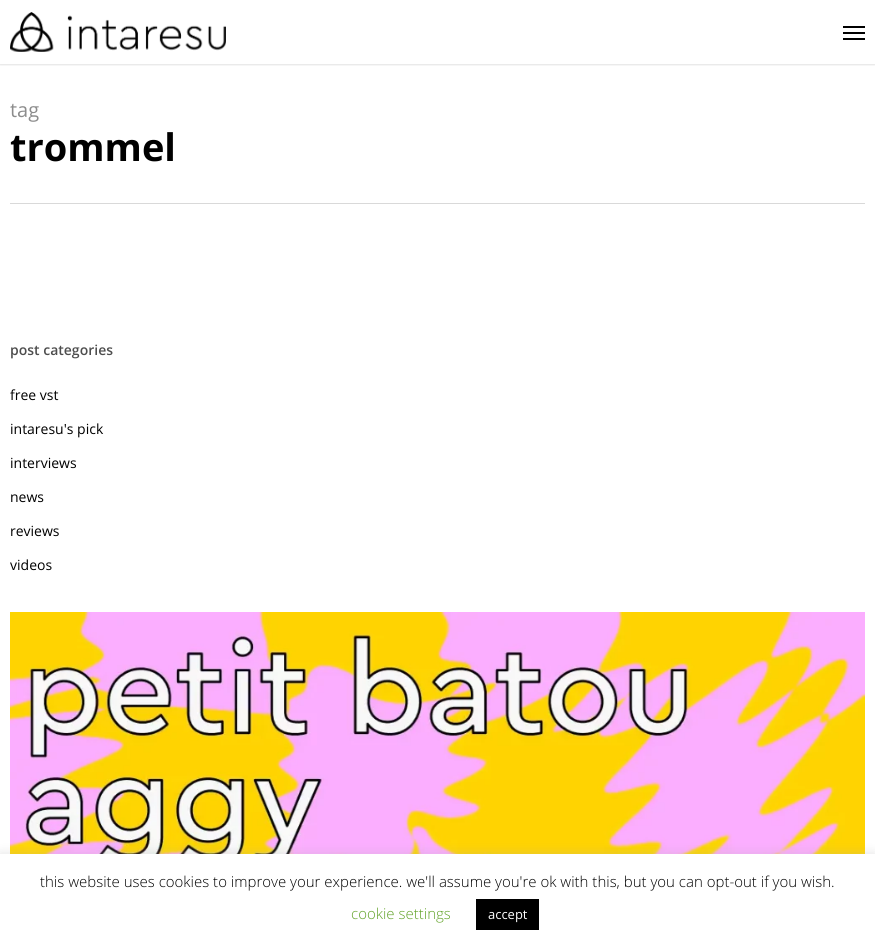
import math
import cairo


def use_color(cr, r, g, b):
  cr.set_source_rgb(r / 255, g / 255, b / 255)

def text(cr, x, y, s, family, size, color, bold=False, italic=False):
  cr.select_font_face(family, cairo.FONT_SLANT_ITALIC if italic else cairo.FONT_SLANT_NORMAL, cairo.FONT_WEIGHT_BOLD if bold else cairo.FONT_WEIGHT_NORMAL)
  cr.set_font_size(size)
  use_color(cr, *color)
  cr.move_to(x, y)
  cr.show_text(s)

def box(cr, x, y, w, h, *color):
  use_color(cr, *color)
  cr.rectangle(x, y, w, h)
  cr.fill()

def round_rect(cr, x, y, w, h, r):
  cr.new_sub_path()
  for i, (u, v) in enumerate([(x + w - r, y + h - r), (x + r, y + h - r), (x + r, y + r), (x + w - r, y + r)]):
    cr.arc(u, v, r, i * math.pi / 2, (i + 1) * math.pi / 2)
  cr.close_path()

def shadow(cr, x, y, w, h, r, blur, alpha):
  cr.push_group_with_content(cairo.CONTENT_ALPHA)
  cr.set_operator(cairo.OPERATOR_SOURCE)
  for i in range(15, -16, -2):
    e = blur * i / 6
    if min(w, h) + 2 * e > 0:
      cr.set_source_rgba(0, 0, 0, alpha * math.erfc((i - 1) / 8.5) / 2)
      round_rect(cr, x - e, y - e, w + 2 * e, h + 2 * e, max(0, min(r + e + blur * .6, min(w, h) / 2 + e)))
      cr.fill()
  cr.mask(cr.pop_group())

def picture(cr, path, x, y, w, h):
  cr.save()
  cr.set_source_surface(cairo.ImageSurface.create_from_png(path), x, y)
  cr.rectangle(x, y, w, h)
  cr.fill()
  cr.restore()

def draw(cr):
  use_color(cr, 255, 255, 255)
  cr.paint()
  cr.save()
  cr.rectangle(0, 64, 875, 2)
  cr.clip()
  use_color(cr, 0, 0, 0)
  shadow(cr, 0, 0, 875, 64, 0, 1.5, 0.22)
  cr.restore()
  picture(cr, "img_01.png", 10, 12, 216, 40)
  box(cr, 843, 26, 22, 2, 0, 0, 0)
  box(cr, 843, 38, 22, 2, 0, 0, 0)
  box(cr, 843, 32, 22, 2, 0, 0, 0)
  box(cr, 10, 203, 855, 1, 217, 217, 217)
  picture(cr, "img_02.png", 10, 612, 855, 242)
  use_color(cr, 172, 171, 171)
  shadow(cr, 0, 853, 875, 93, 0, 5, 0.3)
  box(cr, 0, 854, 875, 93, 255, 255, 255)
  box(cr, 476, 899, 63, 31, 0, 0, 0)
  text(cr, 10, 117, "tag", "Open Sans", 20, (140, 140, 140))
  text(cr, 10, 161, "trommel", "Open Sans", 38, (0, 0, 0), bold=True)
  text(cr, 10, 355, "post categories", "Open Sans SemiBold", 14, (77, 77, 77))
  text(cr, 10, 400, "free vst", "Open Sans", 14, (0, 0, 0))
  text(cr, 10, 434, "intaresu's pick", "Open Sans", 14, (0, 0, 0))
  text(cr, 10, 468, "interviews", "Open Sans", 14, (0, 0, 0))
  text(cr, 10, 502, "news", "Open Sans", 14, (0, 0, 0))
  text(cr, 10, 536, "reviews", "Open Sans", 14, (0, 0, 0))
  text(cr, 10, 570, "videos", "Open Sans", 14, (0, 0, 0))
  text(cr, 40, 887, "this website uses cookies to improve your experience. we'll assume you're ok with this, but you can opt-out if you wish.", "Open Sans Light", 15, (0, 0, 0))
  text(cr, 351, 919, "cookie settings", "Open Sans Light", 15, (98, 163, 41))
  text(cr, 488, 919, "accept", "Open Sans", 13, (255, 255, 255))


surface = cairo.ImageSurface(cairo.FORMAT_RGB24, 875, 947)
cr = cairo.Context(surface)
options = cairo.FontOptions()
options.set_hint_metrics(cairo.HINT_METRICS_OFF)
options.set_hint_style(cairo.HINT_STYLE_NONE)
cr.set_font_options(options)
cr.set_miter_limit(4)
draw(cr)
surface.write_to_png("out.png")
